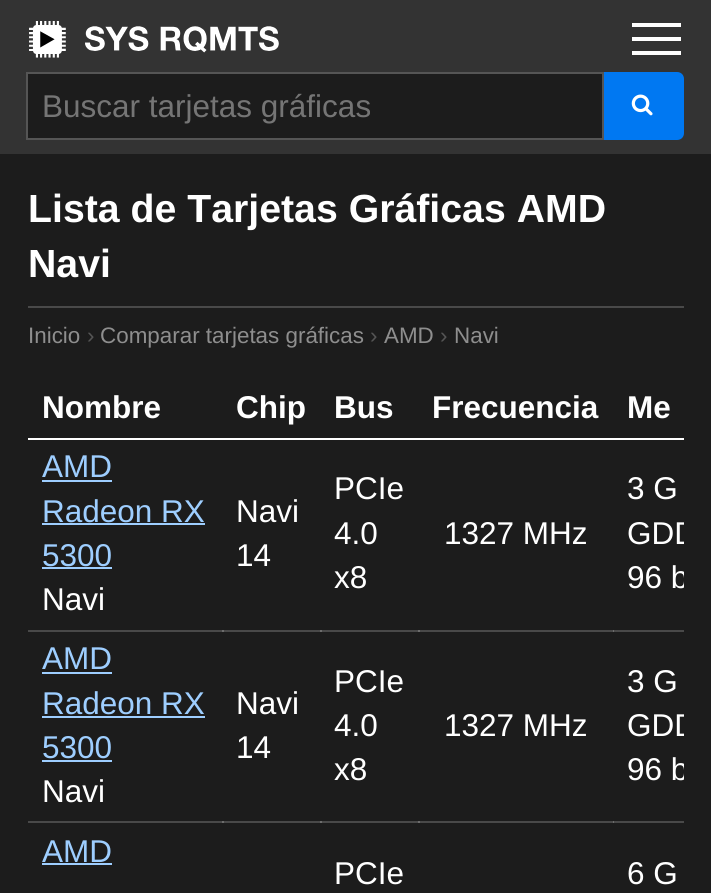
import math
import cairo


def use_color(cr, r, g, b):
  cr.set_source_rgb(r / 255, g / 255, b / 255)

def text(cr, x, y, s, family, size, color, bold=False, italic=False):
  cr.select_font_face(family, cairo.FONT_SLANT_ITALIC if italic else cairo.FONT_SLANT_NORMAL, cairo.FONT_WEIGHT_BOLD if bold else cairo.FONT_WEIGHT_NORMAL)
  cr.set_font_size(size)
  use_color(cr, *color)
  cr.move_to(x, y)
  cr.show_text(s)

def box(cr, x, y, w, h, *color):
  use_color(cr, *color)
  cr.rectangle(x, y, w, h)
  cr.fill()

def picture(cr, path, x, y, w, h):
  cr.save()
  cr.set_source_surface(cairo.ImageSurface.create_from_png(path), x, y)
  cr.rectangle(x, y, w, h)
  cr.fill()
  cr.restore()

def draw(cr):
  use_color(cr, 28, 28, 28)
  cr.paint()
  box(cr, 28, 630, 656, 2, 73, 73, 73)
  box(cr, 222, 630, 2, 2, 109, 109, 109)
  box(cr, 320, 630, 2, 2, 109, 109, 109)
  box(cr, 418, 630, 2, 2, 109, 109, 109)
  box(cr, 28, 821, 656, 2, 73, 73, 73)
  box(cr, 222, 821, 2, 2, 109, 109, 109)
  box(cr, 320, 821, 2, 2, 109, 109, 109)
  box(cr, 418, 821, 2, 2, 109, 109, 109)
  box(cr, 0, 0, 711, 154, 51, 51, 51)
  picture(cr, "img_01.png", 29, 21, 250, 37)
  box(cr, 632, 23, 49, 4, 255, 255, 255)
  box(cr, 632, 37, 49, 4, 255, 255, 255)
  box(cr, 632, 51, 49, 4, 255, 255, 255)
  use_color(cr, 0, 120, 242)
  cr.new_path()
  cr.move_to(603, 73)
  cr.line_to(677, 73)
  cr.curve_to(680.5, 73, 683, 75.5, 683, 79)
  cr.line_to(683, 133)
  cr.curve_to(683, 136.5, 680.5, 139, 677, 139)
  cr.line_to(603, 139)
  cr.close_path()
  cr.fill_preserve()
  cr.stroke()
  use_color(cr, 28, 28, 28)
  cr.rectangle(27, 73, 576, 66)
  cr.fill_preserve()
  use_color(cr, 85, 85, 85)
  cr.stroke()
  picture(cr, "img_02.png", 631, 94, 22, 22)
  box(cr, 28, 306, 656, 2, 73, 73, 73)
  box(cr, 28, 438, 656, 2, 255, 255, 255)
  box(cr, 42, 480, 70, 2, 158, 206, 255)
  box(cr, 42, 523, 163, 2, 158, 206, 255)
  box(cr, 42, 567, 70, 2, 158, 206, 255)
  box(cr, 613, 630, 1, 2, 109, 109, 109)
  box(cr, 42, 672, 70, 2, 158, 206, 255)
  box(cr, 42, 716, 163, 2, 158, 206, 255)
  box(cr, 42, 760, 70, 2, 158, 206, 255)
  box(cr, 613, 821, 1, 2, 109, 109, 109)
  box(cr, 42, 863, 70, 2, 158, 206, 255)
  text(cr, 42, 117, "Buscar tarjetas gráficas", "Liberation Sans", 31.5, (117, 117, 117))
  text(cr, 28, 222, "Lista de Tarjetas Gráficas AMD", "Liberation Sans", 39.25, (255, 255, 255), bold=True)
  text(cr, 28, 277, "Navi", "Liberation Sans", 39.25, (255, 255, 255), bold=True)
  text(cr, 28, 343, "Inicio", "Liberation Sans", 22.4, (142, 142, 142))
  text(cr, 87, 343, "›", "Liberation Sans", 22.4, (85, 85, 85))
  text(cr, 100, 343, "Comparar tarjetas gráficas", "Liberation Sans", 22.4, (142, 142, 142))
  text(cr, 370, 343, "›", "Liberation Sans", 22.4, (85, 85, 85))
  text(cr, 384, 343, "AMD", "Liberation Sans", 22.4, (142, 142, 142))
  text(cr, 440, 343, "›", "Liberation Sans", 22.4, (85, 85, 85))
  text(cr, 454, 343, "Navi", "Liberation Sans", 22.4, (142, 142, 142))
  text(cr, 42, 418, "Nombre", "Liberation Sans", 31.5, (255, 255, 255), bold=True)
  text(cr, 236, 418, "Chip", "Liberation Sans", 31.5, (255, 255, 255), bold=True)
  text(cr, 334, 418, "Bus", "Liberation Sans", 31.5, (255, 255, 255), bold=True)
  text(cr, 432, 418, "Frecuencia", "Liberation Sans", 31.5, (255, 255, 255), bold=True)
  text(cr, 627, 418, "Me", "Liberation Sans", 31.5, (255, 255, 255), bold=True)
  text(cr, 42, 477, "AMD", "Liberation Sans", 31.5, (158, 206, 255))
  text(cr, 42, 522, "Radeon RX", "Liberation Sans", 31.5, (158, 206, 255))
  text(cr, 42, 566, "5300", "Liberation Sans", 31.5, (158, 206, 255))
  text(cr, 42, 610, "Navi", "Liberation Sans", 31.5, (255, 255, 255))
  text(cr, 236, 522, "Navi", "Liberation Sans", 31.5, (255, 255, 255))
  text(cr, 236, 566, "14", "Liberation Sans", 31.5, (255, 255, 255))
  text(cr, 334, 499, "PCIe", "Liberation Sans", 31.5, (255, 255, 255))
  text(cr, 334, 544, "4.0", "Liberation Sans", 31.5, (255, 255, 255))
  text(cr, 334, 588, "x8", "Liberation Sans", 31.5, (255, 255, 255))
  text(cr, 444, 544, "1327 MHz", "Liberation Sans", 31.5, (255, 255, 255))
  text(cr, 627, 499, "3 G", "Liberation Sans", 31.5, (255, 255, 255))
  cr.save()
  cr.rectangle(28, 380, 656, 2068)
  cr.clip()
  text(cr, 627, 544, "GDD", "Liberation Sans", 31.5, (255, 255, 255))
  text(cr, 627, 588, "96 b", "Liberation Sans", 31.5, (255, 255, 255))
  cr.restore()
  text(cr, 42, 669, "AMD", "Liberation Sans", 31.5, (158, 206, 255))
  text(cr, 42, 714, "Radeon RX", "Liberation Sans", 31.5, (158, 206, 255))
  text(cr, 42, 758, "5300", "Liberation Sans", 31.5, (158, 206, 255))
  text(cr, 42, 802, "Navi", "Liberation Sans", 31.5, (255, 255, 255))
  text(cr, 236, 714, "Navi", "Liberation Sans", 31.5, (255, 255, 255))
  text(cr, 236, 758, "14", "Liberation Sans", 31.5, (255, 255, 255))
  text(cr, 334, 692, "PCIe", "Liberation Sans", 31.5, (255, 255, 255))
  text(cr, 334, 736, "4.0", "Liberation Sans", 31.5, (255, 255, 255))
  text(cr, 334, 780, "x8", "Liberation Sans", 31.5, (255, 255, 255))
  text(cr, 444, 736, "1327 MHz", "Liberation Sans", 31.5, (255, 255, 255))
  text(cr, 627, 692, "3 G", "Liberation Sans", 31.5, (255, 255, 255))
  cr.save()
  cr.rectangle(28, 380, 656, 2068)
  cr.clip()
  text(cr, 627, 736, "GDD", "Liberation Sans", 31.5, (255, 255, 255))
  text(cr, 627, 780, "96 b", "Liberation Sans", 31.5, (255, 255, 255))
  cr.restore()
  text(cr, 42, 862, "AMD", "Liberation Sans", 31.5, (158, 206, 255))
  text(cr, 334, 884, "PCIe", "Liberation Sans", 31.5, (255, 255, 255))
  text(cr, 627, 884, "6 G", "Liberation Sans", 31.5, (255, 255, 255))


surface = cairo.ImageSurface(cairo.FORMAT_RGB24, 711, 893)
cr = cairo.Context(surface)
options = cairo.FontOptions()
options.set_hint_metrics(cairo.HINT_METRICS_OFF)
options.set_hint_style(cairo.HINT_STYLE_NONE)
cr.set_font_options(options)
cr.set_miter_limit(4)
draw(cr)
surface.write_to_png("out.png")
